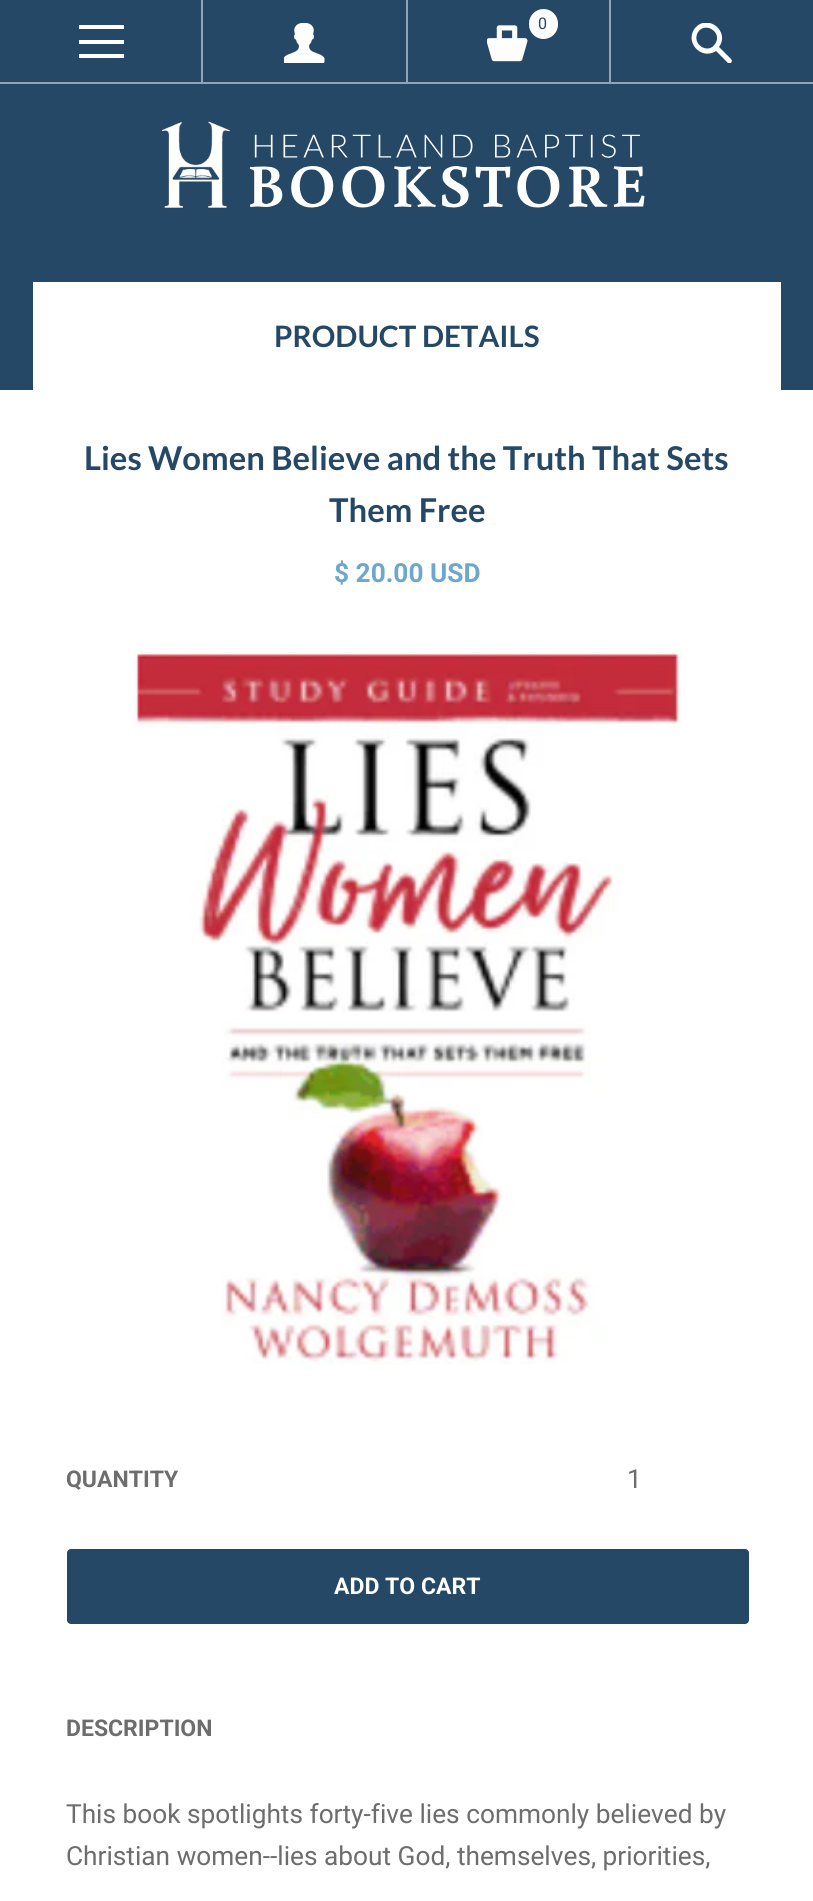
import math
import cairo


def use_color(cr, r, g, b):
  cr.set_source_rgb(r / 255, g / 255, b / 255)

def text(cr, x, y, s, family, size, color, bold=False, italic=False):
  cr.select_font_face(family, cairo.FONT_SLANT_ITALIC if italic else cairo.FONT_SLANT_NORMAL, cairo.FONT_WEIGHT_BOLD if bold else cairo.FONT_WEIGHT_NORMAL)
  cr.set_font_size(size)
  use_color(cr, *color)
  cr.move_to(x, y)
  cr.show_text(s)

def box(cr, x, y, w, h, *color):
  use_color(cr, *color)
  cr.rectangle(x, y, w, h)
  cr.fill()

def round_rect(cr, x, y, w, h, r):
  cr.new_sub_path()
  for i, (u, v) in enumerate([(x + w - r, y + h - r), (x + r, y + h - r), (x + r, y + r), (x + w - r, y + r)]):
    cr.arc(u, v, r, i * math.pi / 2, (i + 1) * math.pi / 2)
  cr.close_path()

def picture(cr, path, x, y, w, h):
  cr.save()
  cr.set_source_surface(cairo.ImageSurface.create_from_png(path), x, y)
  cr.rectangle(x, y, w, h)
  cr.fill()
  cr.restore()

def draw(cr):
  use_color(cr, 255, 255, 255)
  cr.paint()
  box(cr, 0, 84, 813, 306, 36, 72, 102)
  box(cr, 0, 0, 813, 82, 36, 72, 102)
  box(cr, 0, 82, 813, 2, 146, 164, 179)
  box(cr, 201, 0, 2, 82, 146, 164, 179)
  box(cr, 79, 40, 45, 4, 255, 255, 255)
  box(cr, 79, 25, 45, 4, 255, 255, 255)
  box(cr, 79, 54, 45, 4, 255, 255, 255)
  box(cr, 406, 0, 2, 82, 146, 164, 179)
  picture(cr, "img_01.png", 284, 23, 41, 40)
  box(cr, 609, 0, 2, 82, 146, 164, 179)
  use_color(cr, 255, 255, 255)
  round_rect(cr, 529, 9, 29, 30, 14.5)
  cr.fill()
  picture(cr, "img_02.png", 487, 25, 41, 37)
  cr.save()
  cr.rectangle(691, 23, 41, 40)
  cr.clip()
  cr.new_path()
  cr.move_to(731, 59)
  cr.line_to(719, 47)
  cr.curve_to(730, 32, 709, 14, 696, 27)
  cr.curve_to(683, 41, 701, 61, 716, 51)
  cr.line_to(728, 63)
  cr.curve_to(731, 65, 733, 61, 731, 59)
  cr.close_path()
  cr.move_to(715, 44)
  cr.curve_to(708, 55, 691, 44, 698, 32)
  cr.curve_to(706, 21, 723, 33, 715, 44)
  cr.close_path()
  cr.fill()
  cr.restore()
  picture(cr, "img_03.png", 162, 121, 483, 88)
  box(cr, 33, 282, 748, 108, 255, 255, 255)
  picture(cr, "img_04.png", 132, 651, 550, 714)
  use_color(cr, 36, 72, 102)
  round_rect(cr, 67, 1549, 682, 75, 4)
  cr.fill()
  text(cr, 538, 29, "0", "Roboto", 16, (36, 72, 102))
  text(cr, 274, 347, "PRODUCT DETAILS", "Lato", 29.5, (36, 72, 102), bold=True)
  text(cr, 84, 470, "Lies Women Believe and the Truth That Sets", "Lato", 32.8, (36, 72, 102), bold=True)
  text(cr, 329, 522, "Them Free", "Lato", 32.8, (36, 72, 102), bold=True)
  text(cr, 334, 582, "$ 20.00 USD", "Roboto", 26.25, (109, 167, 204), bold=True)
  text(cr, 66, 1487, "QUANTITY", "Roboto", 23, (109, 109, 109), bold=True)
  text(cr, 627, 1488, "1", "Roboto", 26.25, (109, 109, 109))
  text(cr, 334, 1594, "ADD TO CART", "Roboto", 23, (255, 255, 255), bold=True)
  text(cr, 66, 1736, "DESCRIPTION", "Roboto", 23, (109, 109, 109), bold=True)
  text(cr, 66, 1823, "This book spotlights forty-five lies commonly believed by", "Roboto", 26.25, (109, 109, 109))
  text(cr, 66, 1865, "Christian women--lies about God, themselves, priorities,", "Roboto", 26.25, (109, 109, 109))


surface = cairo.ImageSurface(cairo.FORMAT_RGB24, 813, 1901)
cr = cairo.Context(surface)
options = cairo.FontOptions()
options.set_hint_metrics(cairo.HINT_METRICS_OFF)
options.set_hint_style(cairo.HINT_STYLE_NONE)
cr.set_font_options(options)
cr.set_miter_limit(4)
draw(cr)
surface.write_to_png("out.png")
